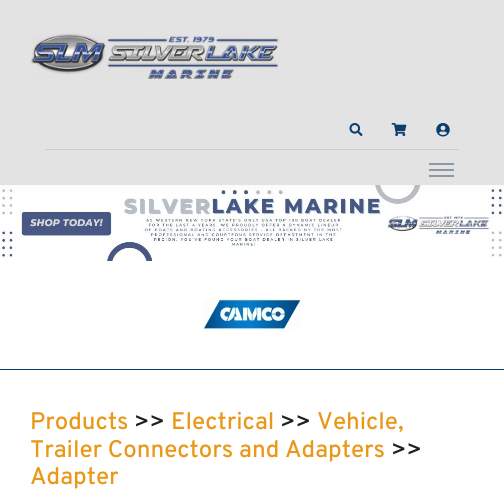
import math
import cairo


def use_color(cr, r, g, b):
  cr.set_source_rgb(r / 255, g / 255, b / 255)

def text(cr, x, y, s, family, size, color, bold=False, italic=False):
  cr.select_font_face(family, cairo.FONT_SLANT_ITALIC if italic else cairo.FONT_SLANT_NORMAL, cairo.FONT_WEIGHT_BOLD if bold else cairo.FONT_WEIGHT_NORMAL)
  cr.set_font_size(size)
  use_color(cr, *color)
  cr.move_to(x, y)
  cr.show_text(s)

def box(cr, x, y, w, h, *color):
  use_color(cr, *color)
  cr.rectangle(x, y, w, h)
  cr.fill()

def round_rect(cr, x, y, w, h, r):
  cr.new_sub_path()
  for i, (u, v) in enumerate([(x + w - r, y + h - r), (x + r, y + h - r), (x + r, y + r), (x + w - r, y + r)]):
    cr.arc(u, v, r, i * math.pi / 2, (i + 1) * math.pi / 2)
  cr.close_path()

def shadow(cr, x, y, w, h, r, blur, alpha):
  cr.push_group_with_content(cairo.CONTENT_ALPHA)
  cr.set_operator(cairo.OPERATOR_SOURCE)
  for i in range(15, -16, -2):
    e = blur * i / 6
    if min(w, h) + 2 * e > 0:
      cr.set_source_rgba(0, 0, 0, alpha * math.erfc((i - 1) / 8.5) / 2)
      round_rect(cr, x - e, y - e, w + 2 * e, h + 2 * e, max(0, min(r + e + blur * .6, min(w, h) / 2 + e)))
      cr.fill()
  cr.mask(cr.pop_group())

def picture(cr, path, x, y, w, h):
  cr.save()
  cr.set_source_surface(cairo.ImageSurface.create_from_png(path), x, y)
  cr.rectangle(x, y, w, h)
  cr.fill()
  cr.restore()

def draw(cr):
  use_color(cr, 255, 255, 255)
  cr.paint()
  picture(cr, "img_05.png", 0, 185, 504, 76)
  use_color(cr, 151, 164, 175)
  shadow(cr, 0, 1, 504, 185, 0, 5, 0.1)
  box(cr, 0, 0, 504, 185, 227, 227, 227)
  picture(cr, "img_01.png", 30, 33, 250, 46)
  box(cr, 45, 149, 414, 1, 204, 204, 204)
  picture(cr, "img_02.png", 349, 123, 14, 13)
  picture(cr, "img_03.png", 391, 123, 16, 14)
  picture(cr, "img_04.png", 436, 123, 14, 14)
  box(cr, 429, 163, 25, 2, 140, 152, 164)
  box(cr, 429, 169, 25, 2, 140, 152, 164)
  box(cr, 429, 175, 25, 2, 140, 152, 164)
  box(cr, 0, 369, 504, 1, 11, 62, 109)
  picture(cr, "img_06.png", 203, 299, 98, 31)
  text(cr, 30, 429, "Products", "Overpass Medium", 24, (233, 152, 24))
  text(cr, 134, 429, ">>", "Overpass Medium", 24, (30, 32, 34))
  text(cr, 171, 429, "Electrical", "Overpass Medium", 24, (233, 152, 24))
  text(cr, 280, 429, ">>", "Overpass Medium", 24, (30, 32, 34))
  text(cr, 317, 429, "Vehicle,", "Overpass Medium", 24, (233, 152, 24))
  text(cr, 30, 457, "Trailer Connectors and Adapters", "Overpass Medium", 24, (233, 152, 24))
  text(cr, 391, 457, ">>", "Overpass Medium", 24, (30, 32, 34))
  text(cr, 30, 484, "Adapter", "Overpass Medium", 24, (233, 152, 24))


surface = cairo.ImageSurface(cairo.FORMAT_RGB24, 504, 500)
cr = cairo.Context(surface)
options = cairo.FontOptions()
options.set_hint_metrics(cairo.HINT_METRICS_OFF)
options.set_hint_style(cairo.HINT_STYLE_NONE)
cr.set_font_options(options)
cr.set_miter_limit(4)
draw(cr)
surface.write_to_png("out.png")
